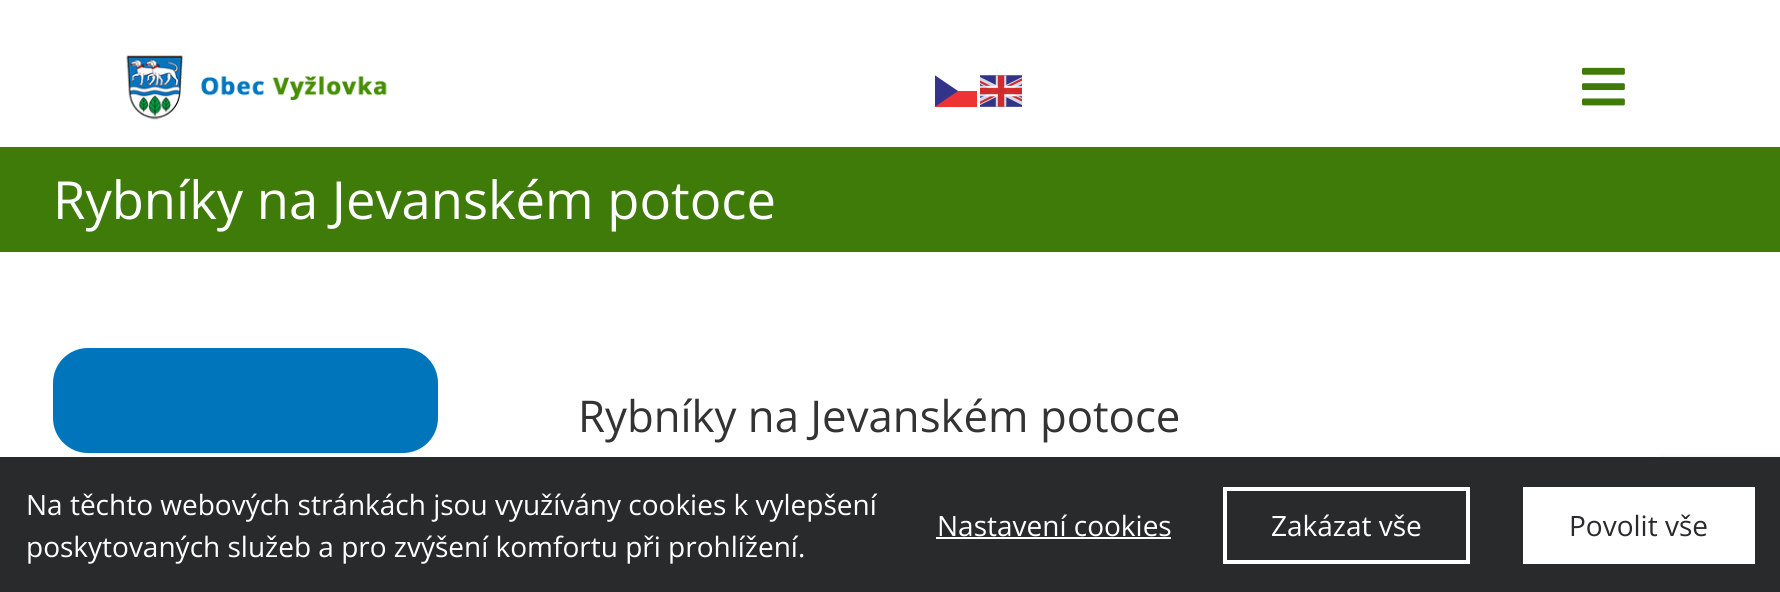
import math
import cairo


def use_color(cr, r, g, b):
  cr.set_source_rgb(r / 255, g / 255, b / 255)

def text(cr, x, y, s, family, size, color, bold=False, italic=False):
  cr.select_font_face(family, cairo.FONT_SLANT_ITALIC if italic else cairo.FONT_SLANT_NORMAL, cairo.FONT_WEIGHT_BOLD if bold else cairo.FONT_WEIGHT_NORMAL)
  cr.set_font_size(size)
  use_color(cr, *color)
  cr.move_to(x, y)
  cr.show_text(s)

def box(cr, x, y, w, h, *color):
  use_color(cr, *color)
  cr.rectangle(x, y, w, h)
  cr.fill()

def round_rect(cr, x, y, w, h, r):
  cr.new_sub_path()
  for i, (u, v) in enumerate([(x + w - r, y + h - r), (x + r, y + h - r), (x + r, y + r), (x + w - r, y + r)]):
    cr.arc(u, v, r, i * math.pi / 2, (i + 1) * math.pi / 2)
  cr.close_path()

def shadow(cr, x, y, w, h, r, blur, alpha):
  cr.push_group_with_content(cairo.CONTENT_ALPHA)
  cr.set_operator(cairo.OPERATOR_SOURCE)
  for i in range(15, -16, -2):
    e = blur * i / 6
    if min(w, h) + 2 * e > 0:
      cr.set_source_rgba(0, 0, 0, alpha * math.erfc((i - 1) / 8.5) / 2)
      round_rect(cr, x - e, y - e, w + 2 * e, h + 2 * e, max(0, min(r + e + blur * .6, min(w, h) / 2 + e)))
      cr.fill()
  cr.mask(cr.pop_group())

def picture(cr, path, x, y, w, h):
  cr.save()
  cr.set_source_surface(cairo.ImageSurface.create_from_png(path), x, y)
  cr.rectangle(x, y, w, h)
  cr.fill()
  cr.restore()

def draw(cr):
  use_color(cr, 255, 255, 255)
  cr.paint()
  picture(cr, "img_01.png", 126, 55, 261, 65)
  box(cr, 935, 91, 42, 16, 237, 51, 51)
  cr.save()
  cr.rectangle(935, 75, 42, 32)
  cr.clip()
  use_color(cr, 51, 51, 140)
  cr.set_fill_rule(cairo.FILL_RULE_EVEN_ODD)
  cr.new_path()
  cr.move_to(934.5, 75)
  cr.line_to(958, 91)
  cr.line_to(934.5, 107)
  cr.close_path()
  cr.fill()
  cr.restore()
  picture(cr, "img_02.png", 980, 75, 42, 32)
  picture(cr, "img_03.png", 1582, 67, 43, 39)
  box(cr, 0, 147, 1780, 105, 63, 123, 8)
  use_color(cr, 0, 117, 188)
  round_rect(cr, 53, 348, 385, 105, 35)
  cr.fill()
  use_color(cr, 128, 128, 128)
  shadow(cr, 1659, 464, 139, 105, 4, 4.5, 1)
  box(cr, 0, 457, 1780, 135, 40, 42, 43)
  box(cr, 936, 537, 235, 2, 255, 255, 255)
  cr.rectangle(1225, 489, 243, 73)
  cr.set_line_width(4)
  cr.stroke()
  box(cr, 1523, 487, 232, 77, 255, 255, 255)
  text(cr, 53, 219, "Rybníky na Jevanském potoce", "Open Sans", 52.5, (255, 255, 255))
  text(cr, 578, 432, "Rybníky na Jevanském potoce", "Open Sans", 43.75, (51, 51, 51))
  text(cr, 26, 515, "Na těchto webových stránkách jsou využívány cookies k vylepšení", "Open Sans", 28, (255, 255, 255))
  text(cr, 26, 557, "poskytovaných služeb a pro zvýšení komfortu při prohlížení.", "Open Sans", 28, (255, 255, 255))
  text(cr, 937, 536, "Nastavení cookies", "Open Sans", 28, (255, 255, 255))
  text(cr, 1271, 536, "Zakázat vše", "Open Sans", 28, (255, 255, 255))
  text(cr, 1569, 536, "Povolit vše", "Open Sans", 28, (40, 42, 43))


surface = cairo.ImageSurface(cairo.FORMAT_RGB24, 1780, 592)
cr = cairo.Context(surface)
options = cairo.FontOptions()
options.set_hint_metrics(cairo.HINT_METRICS_OFF)
options.set_hint_style(cairo.HINT_STYLE_NONE)
cr.set_font_options(options)
cr.set_miter_limit(4)
draw(cr)
surface.write_to_png("out.png")
